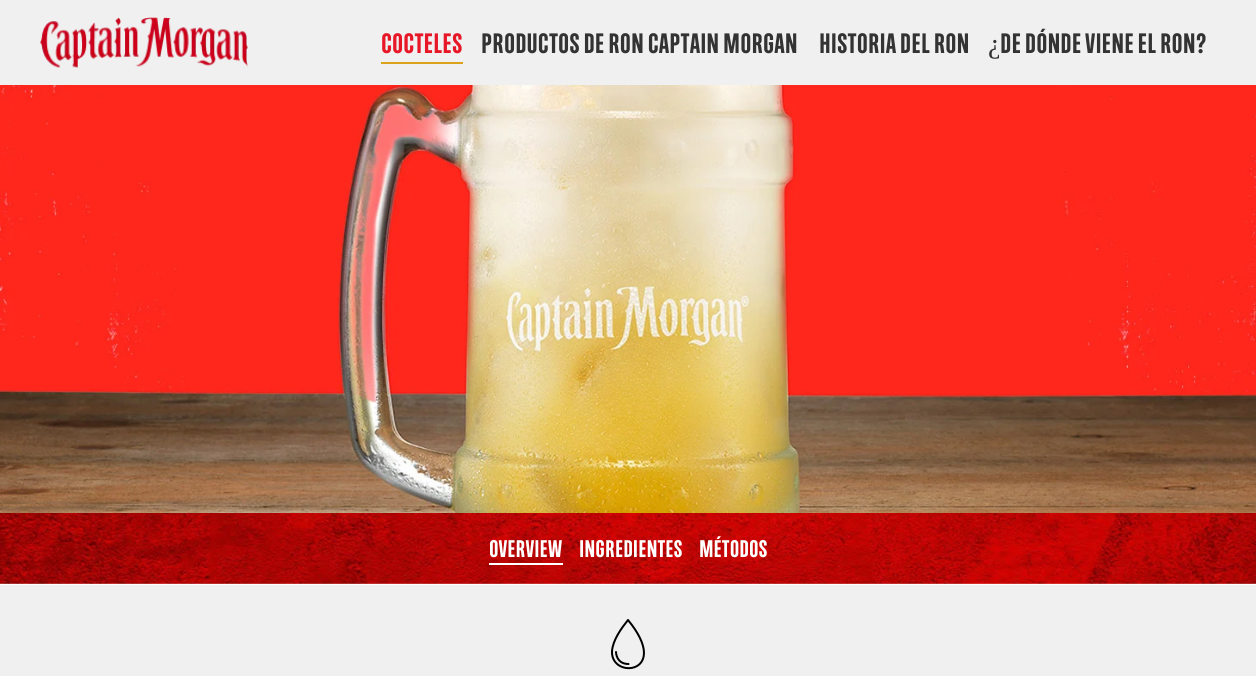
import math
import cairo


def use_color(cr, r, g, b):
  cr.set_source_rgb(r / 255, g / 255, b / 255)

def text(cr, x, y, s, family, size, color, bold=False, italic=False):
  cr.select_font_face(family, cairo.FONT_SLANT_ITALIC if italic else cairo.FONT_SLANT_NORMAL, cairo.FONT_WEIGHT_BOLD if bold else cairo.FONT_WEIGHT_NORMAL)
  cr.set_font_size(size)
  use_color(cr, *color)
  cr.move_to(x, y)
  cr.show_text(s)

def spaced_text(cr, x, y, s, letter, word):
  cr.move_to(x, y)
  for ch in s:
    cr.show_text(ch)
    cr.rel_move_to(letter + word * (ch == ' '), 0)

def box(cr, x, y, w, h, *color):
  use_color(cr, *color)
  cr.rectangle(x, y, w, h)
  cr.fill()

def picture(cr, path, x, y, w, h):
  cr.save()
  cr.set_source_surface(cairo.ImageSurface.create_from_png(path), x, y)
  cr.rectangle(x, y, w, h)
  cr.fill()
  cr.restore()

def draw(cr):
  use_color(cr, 240, 240, 240)
  cr.paint()
  picture(cr, "img_01.png", 40, 17, 208, 51)
  box(cr, 381, 62, 82, 2, 219, 162, 27)
  picture(cr, "img_02.png", 0, 85, 1256, 428)
  box(cr, 0, 584, 1256, 1, 255, 255, 255)
  picture(cr, "img_03.png", 0, 513, 1256, 71)
  box(cr, 489, 563, 74, 2, 255, 255, 255)
  cr.new_path()
  cr.move_to(628, 620)
  cr.curve_to(621.5, 628, 612.5, 640.5, 612, 651.5)
  cr.curve_to(611, 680, 672, 673.5, 628, 620)
  cr.close_path()
  use_color(cr, 0, 0, 0)
  cr.set_line_cap(cairo.LINE_CAP_ROUND)
  cr.set_line_join(cairo.LINE_JOIN_ROUND)
  cr.stroke()
  cr.new_path()
  cr.move_to(616, 652)
  cr.curve_to(616, 652, 616, 664, 628.5, 664)
  cr.set_line_join(cairo.LINE_JOIN_MITER)
  cr.stroke()
  cr.select_font_face("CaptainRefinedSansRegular")
  cr.set_font_size(28)
  use_color(cr, 232, 23, 40)
  spaced_text(cr, 381, 53, "COCTELES", 0.05, 0)
  use_color(cr, 51, 51, 51)
  spaced_text(cr, 481, 53, "PRODUCTOS DE RON CAPTAIN MORGAN", 0.05, 0)
  spaced_text(cr, 819, 53, "HISTORIA DEL RON", 0.05, 0)
  cr.select_font_face("Liberation Serif")
  spaced_text(cr, 988, 53, "¿", 0.05, 0)
  cr.select_font_face("CaptainRefinedSansRegular")
  spaced_text(cr, 1000, 53, "DE DÓNDE VIENE EL RON?", 0.05, 0)
  text(cr, 489, 557, "Overview", "CaptainRefinedSansRegular", 24, (255, 255, 255))
  text(cr, 579, 557, "Ingredientes", "CaptainRefinedSansRegular", 24, (255, 255, 255))
  text(cr, 699, 557, "Métodos", "CaptainRefinedSansRegular", 24, (255, 255, 255))


surface = cairo.ImageSurface(cairo.FORMAT_RGB24, 1256, 676)
cr = cairo.Context(surface)
options = cairo.FontOptions()
options.set_hint_metrics(cairo.HINT_METRICS_OFF)
options.set_hint_style(cairo.HINT_STYLE_NONE)
cr.set_font_options(options)
cr.set_miter_limit(4)
draw(cr)
surface.write_to_png("out.png")
